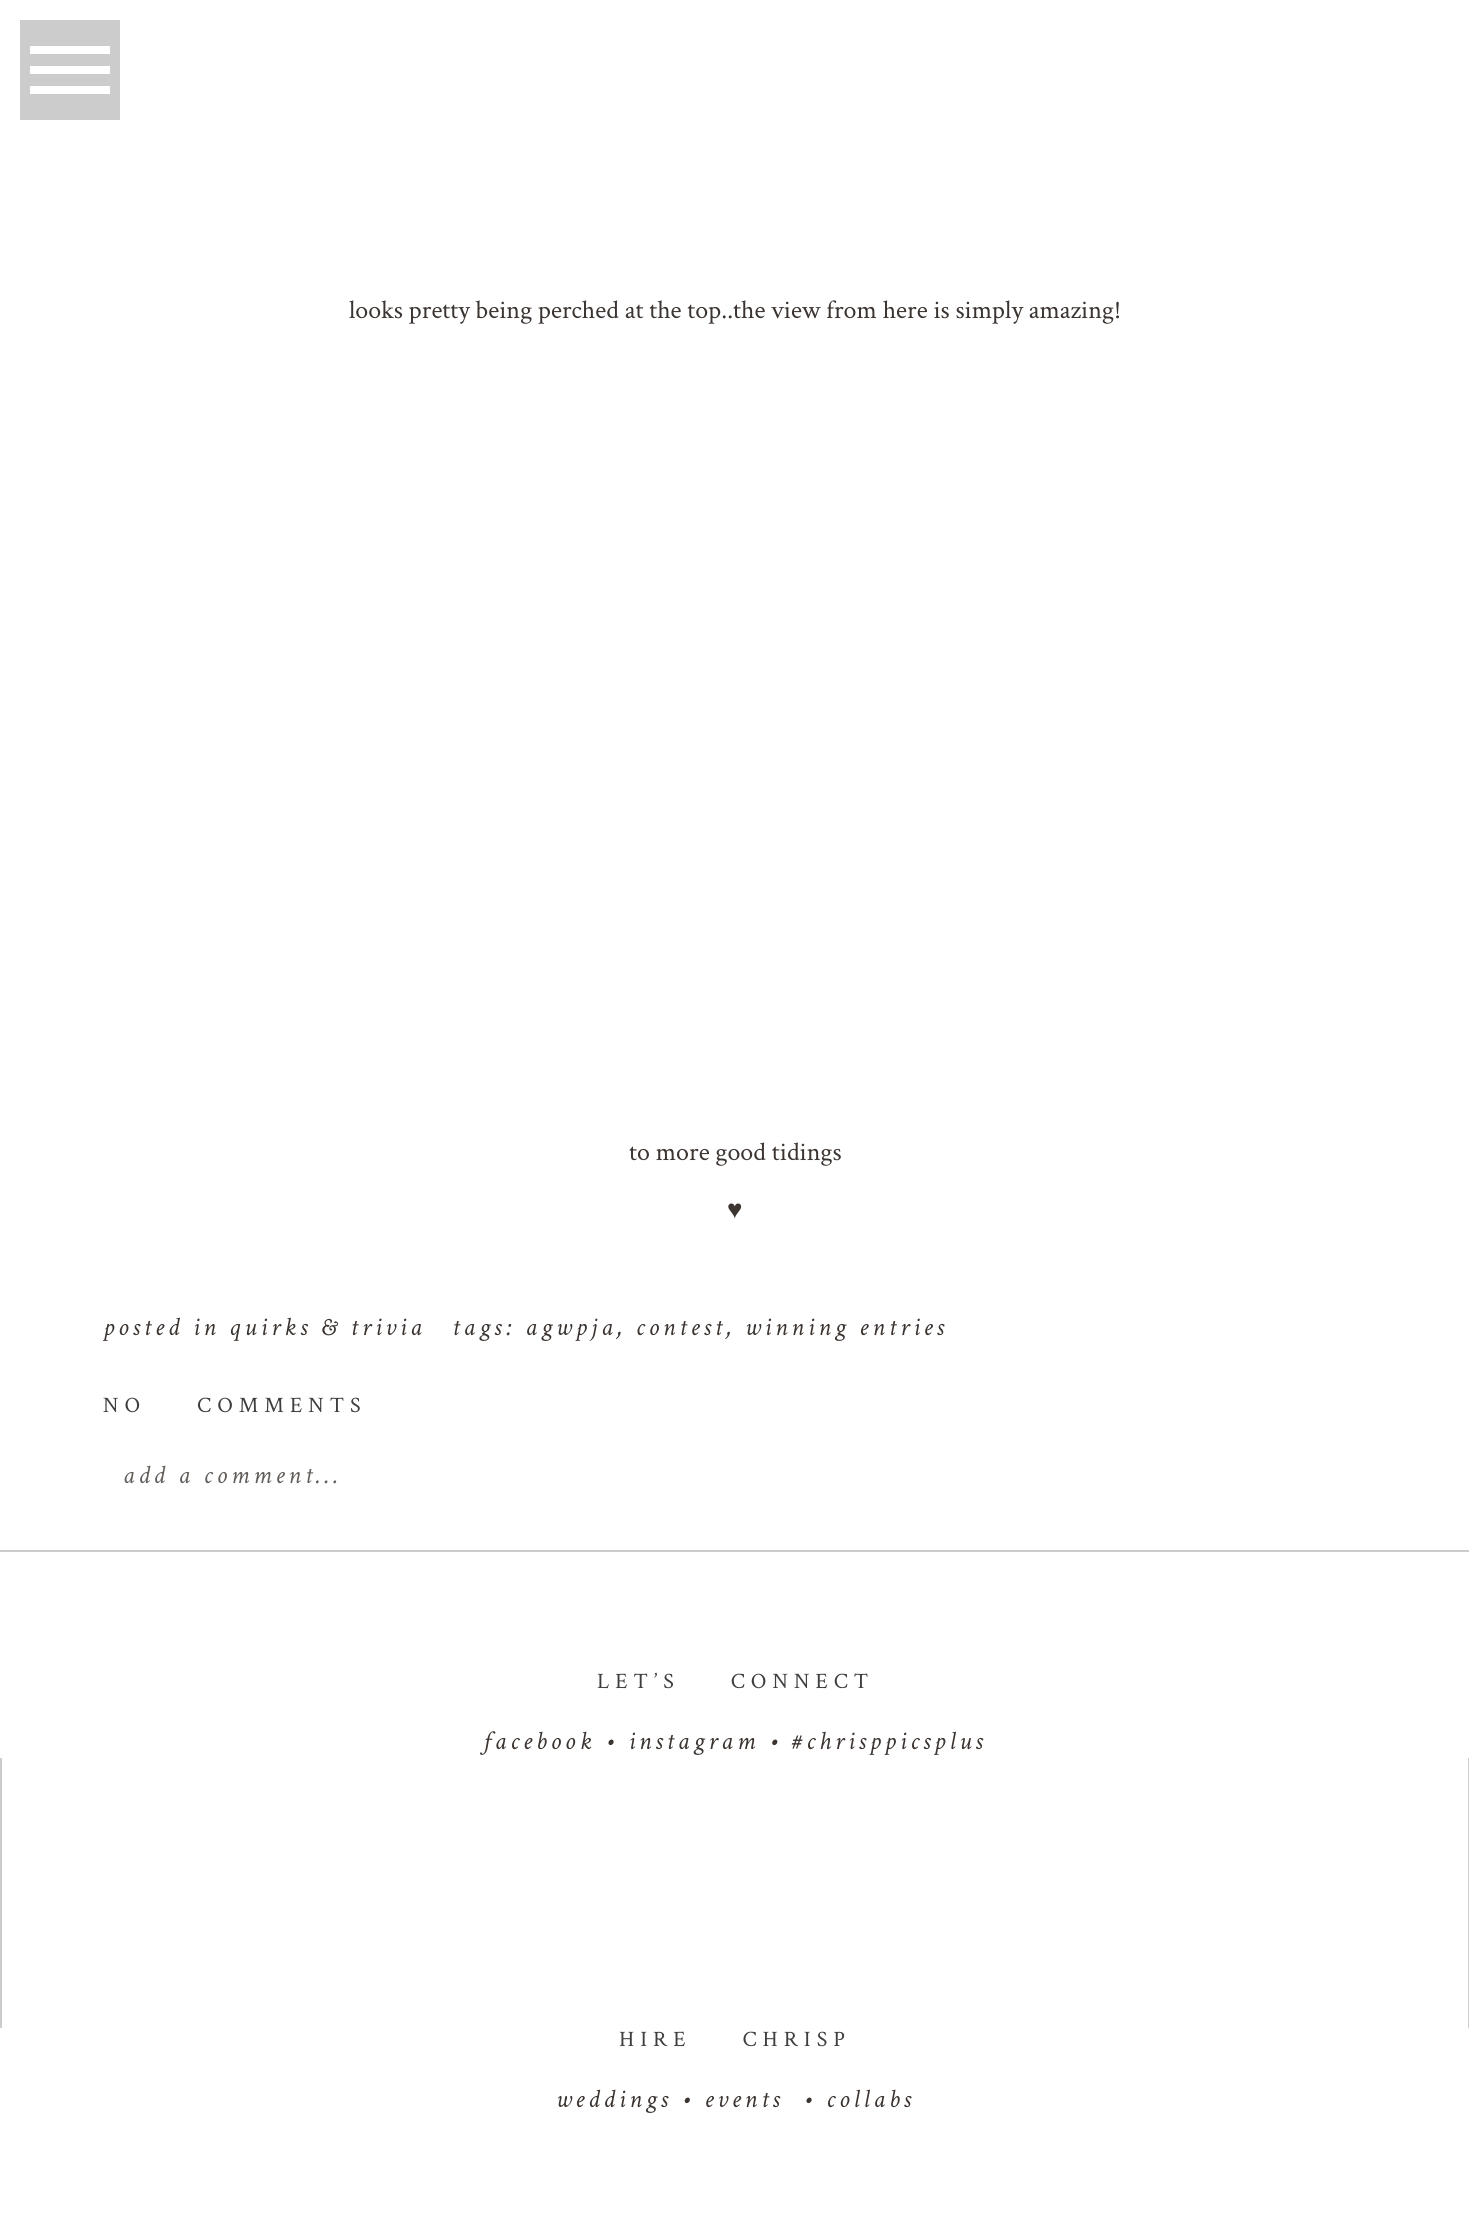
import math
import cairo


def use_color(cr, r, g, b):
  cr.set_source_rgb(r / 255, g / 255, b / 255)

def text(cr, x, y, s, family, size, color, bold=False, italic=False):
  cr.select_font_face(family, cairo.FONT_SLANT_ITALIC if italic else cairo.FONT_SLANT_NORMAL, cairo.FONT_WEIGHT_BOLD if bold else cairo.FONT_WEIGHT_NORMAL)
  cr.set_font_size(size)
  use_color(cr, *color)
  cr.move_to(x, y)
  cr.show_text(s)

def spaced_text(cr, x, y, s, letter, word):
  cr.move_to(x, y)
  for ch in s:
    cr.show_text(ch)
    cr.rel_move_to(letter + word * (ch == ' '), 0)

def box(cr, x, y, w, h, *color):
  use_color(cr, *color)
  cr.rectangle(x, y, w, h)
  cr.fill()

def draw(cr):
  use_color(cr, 255, 255, 255)
  cr.paint()
  box(cr, 20, 20, 100, 100, 204, 204, 204)
  box(cr, 30, 66, 80, 8, 255, 255, 255)
  box(cr, 30, 46, 80, 8, 255, 255, 255)
  box(cr, 30, 86, 80, 8, 255, 255, 255)
  box(cr, 0, 1550, 1469, 2, 206, 204, 203)
  box(cr, 1468, 1758, 1, 270, 206, 204, 203)
  box(cr, 0, 1758, 2, 270, 206, 204, 203)
  text(cr, 349, 318, "looks pretty being perched at the top..the view from here is simply amazing!", "Crimson Text", 26, (59, 52, 48))
  text(cr, 629, 1160, "to more good tidings", "Crimson Text", 26, (59, 52, 48))
  text(cr, 727, 1218, "♥", "Liberation Sans", 26, (59, 52, 48))
  cr.select_font_face("Crimson Text", cairo.FONT_SLANT_ITALIC)
  spaced_text(cr, 103, 1335, "posted in quirks & trivia", 3.9, 0)
  spaced_text(cr, 452, 1335, "tags: agwpja, contest, winning entries", 3.9, 0)
  cr.select_font_face("Crimson Text")
  cr.set_font_size(22)
  use_color(cr, 63, 62, 61)
  spaced_text(cr, 103, 1412, "NO COMMENTS", 6, 40)
  cr.select_font_face("Crimson Text", cairo.FONT_SLANT_ITALIC)
  cr.set_font_size(26)
  use_color(cr, 98, 93, 89)
  spaced_text(cr, 123, 1483, "add a comment...", 3.9, 0)
  cr.select_font_face("Crimson Text")
  cr.set_font_size(22)
  use_color(cr, 63, 62, 61)
  spaced_text(cr, 597, 1688, "LET’S CONNECT", 6, 40)
  cr.select_font_face("Crimson Text", cairo.FONT_SLANT_ITALIC)
  cr.set_font_size(26)
  use_color(cr, 59, 52, 48)
  spaced_text(cr, 483, 1749, "facebook • instagram • #chrisppicsplus", 3.9, 0)
  cr.select_font_face("Crimson Text")
  cr.set_font_size(22)
  use_color(cr, 63, 62, 61)
  spaced_text(cr, 619, 2046, "HIRE CHRISP", 6, 40)
  cr.select_font_face("Crimson Text", cairo.FONT_SLANT_ITALIC)
  cr.set_font_size(26)
  use_color(cr, 59, 52, 48)
  spaced_text(cr, 556, 2107, "weddings • events", 3.9, 0)
  spaced_text(cr, 803, 2107, "• collabs", 3.9, 0)


surface = cairo.ImageSurface(cairo.FORMAT_RGB24, 1469, 2230)
cr = cairo.Context(surface)
options = cairo.FontOptions()
options.set_hint_metrics(cairo.HINT_METRICS_OFF)
options.set_hint_style(cairo.HINT_STYLE_NONE)
cr.set_font_options(options)
cr.set_miter_limit(4)
draw(cr)
surface.write_to_png("out.png")
